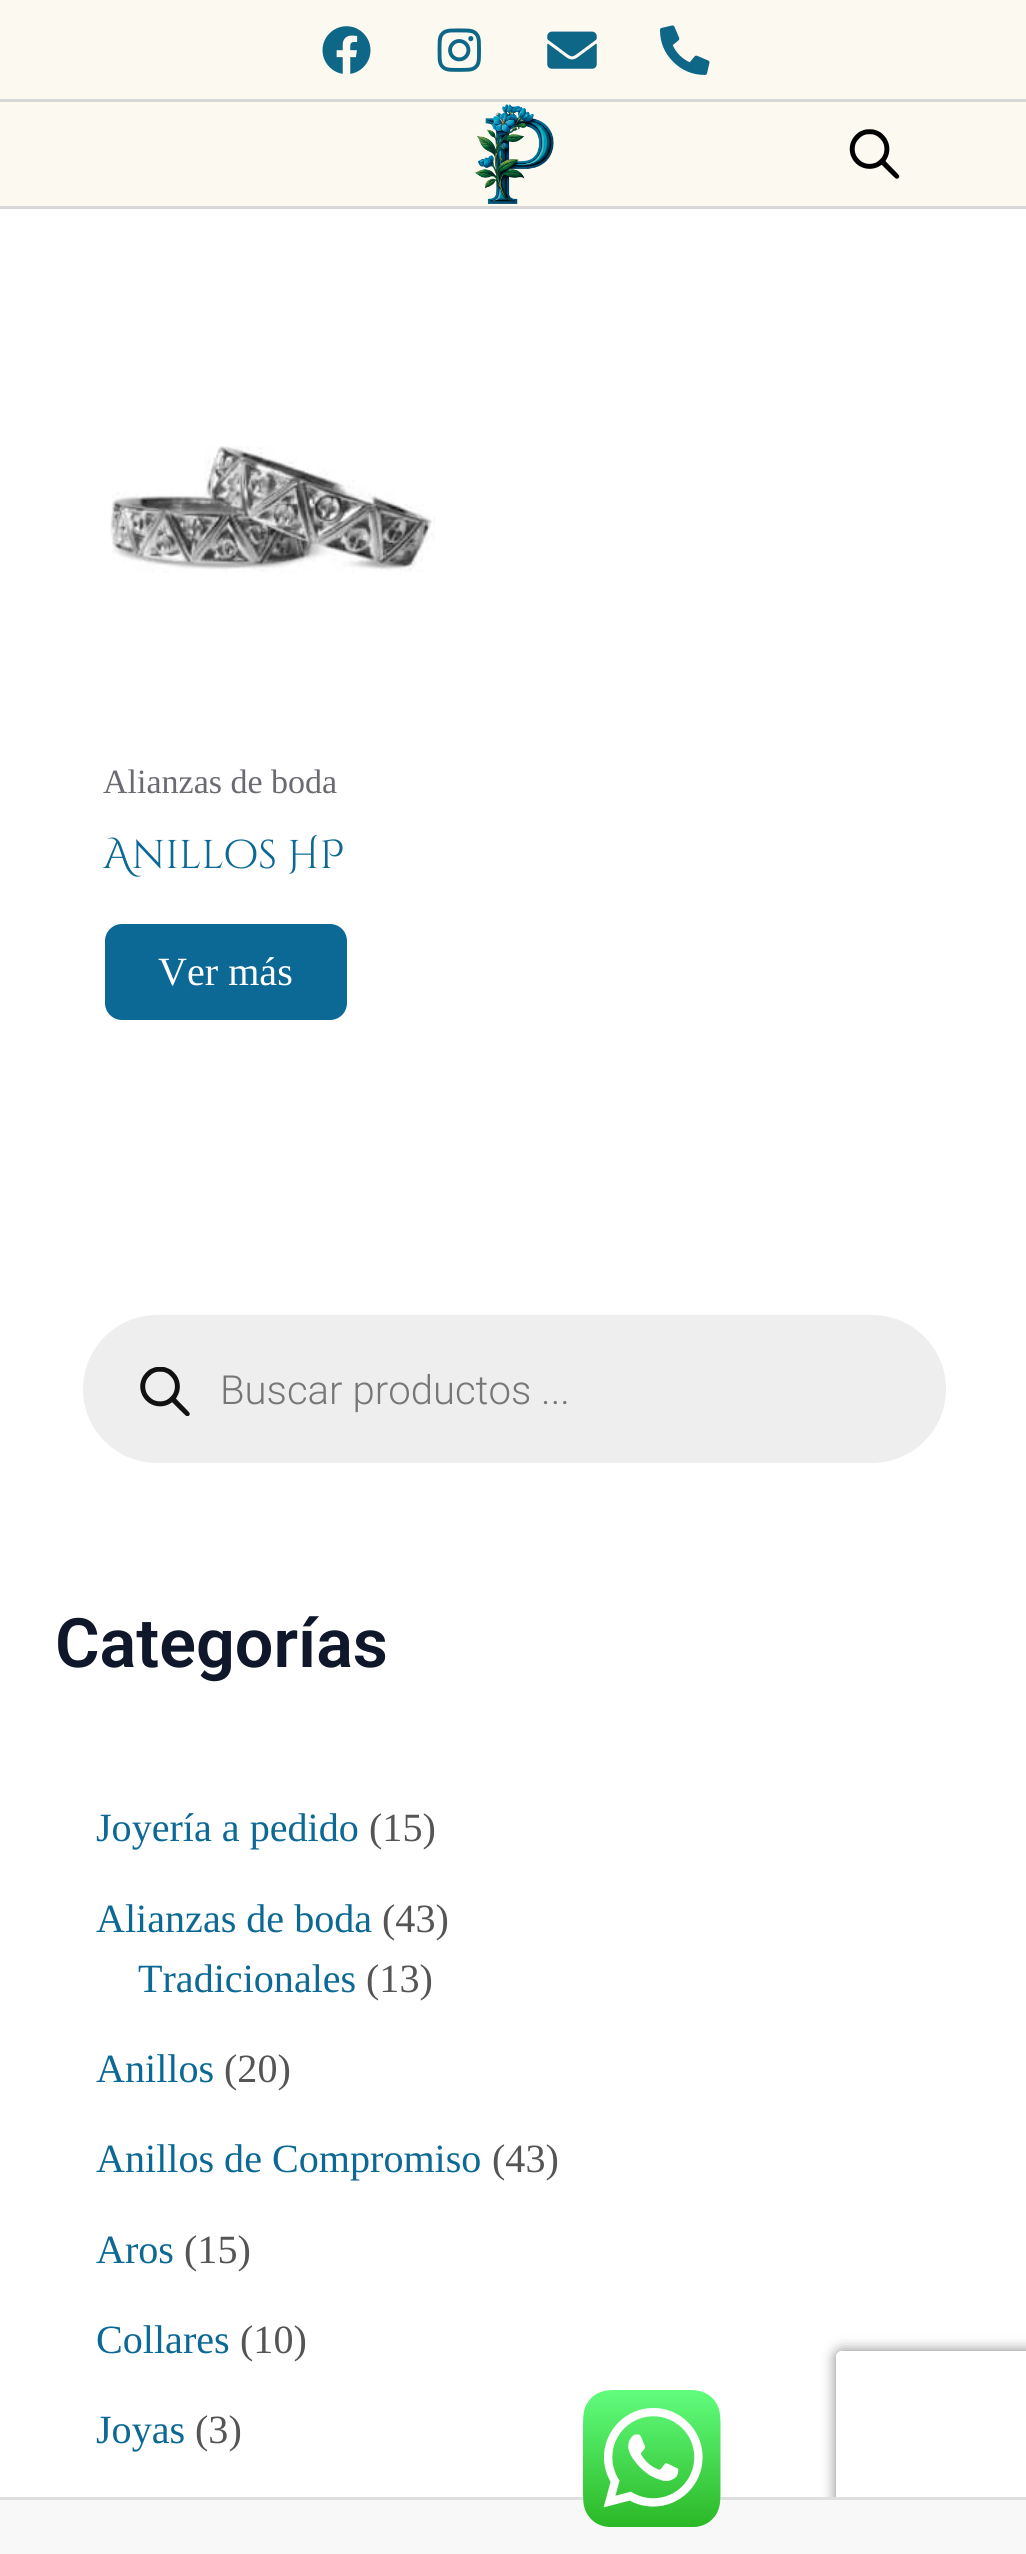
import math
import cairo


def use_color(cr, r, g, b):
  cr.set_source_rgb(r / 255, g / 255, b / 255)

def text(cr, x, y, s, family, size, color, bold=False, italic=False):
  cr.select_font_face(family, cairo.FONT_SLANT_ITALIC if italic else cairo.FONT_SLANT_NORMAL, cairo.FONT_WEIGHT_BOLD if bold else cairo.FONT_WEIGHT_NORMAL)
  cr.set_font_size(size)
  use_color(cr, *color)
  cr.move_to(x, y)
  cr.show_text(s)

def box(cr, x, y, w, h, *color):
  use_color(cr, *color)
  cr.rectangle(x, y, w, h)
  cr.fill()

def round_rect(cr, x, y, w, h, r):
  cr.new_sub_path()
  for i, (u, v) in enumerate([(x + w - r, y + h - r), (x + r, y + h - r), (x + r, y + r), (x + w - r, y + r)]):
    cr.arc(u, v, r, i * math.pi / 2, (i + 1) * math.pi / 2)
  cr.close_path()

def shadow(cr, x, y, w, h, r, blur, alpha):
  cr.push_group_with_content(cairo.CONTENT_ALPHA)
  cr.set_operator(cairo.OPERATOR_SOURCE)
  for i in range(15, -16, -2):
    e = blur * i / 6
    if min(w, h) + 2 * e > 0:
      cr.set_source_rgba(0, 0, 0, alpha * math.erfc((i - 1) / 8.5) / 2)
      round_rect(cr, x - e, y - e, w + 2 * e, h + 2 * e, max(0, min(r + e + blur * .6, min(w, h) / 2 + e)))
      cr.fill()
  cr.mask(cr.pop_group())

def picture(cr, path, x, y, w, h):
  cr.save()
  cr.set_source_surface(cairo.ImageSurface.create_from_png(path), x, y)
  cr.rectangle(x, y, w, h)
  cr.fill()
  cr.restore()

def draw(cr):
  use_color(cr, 255, 255, 255)
  cr.paint()
  box(cr, 0, 0, 1026, 206, 252, 249, 241)
  picture(cr, "img_01.png", 322, 26, 49, 48)
  picture(cr, "img_02.png", 437, 28, 44, 44)
  picture(cr, "img_03.png", 547, 31, 50, 38)
  picture(cr, "img_04.png", 660, 25, 50, 50)
  box(cr, 0, 99, 1026, 3, 215, 215, 215)
  box(cr, 0, 206, 1026, 3, 215, 215, 215)
  picture(cr, "img_05.png", 475, 104, 79, 100)
  picture(cr, "img_06.png", 849, 129, 51, 50)
  picture(cr, "img_07.png", 110, 446, 325, 127)
  use_color(cr, 12, 104, 148)
  round_rect(cr, 105, 924, 242, 96, 17)
  cr.fill()
  cr.save()
  cr.set_fill_rule(cairo.FILL_RULE_EVEN_ODD)
  cr.new_path()
  cr.move_to(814, 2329)
  cr.line_to(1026, 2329)
  cr.line_to(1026, 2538)
  cr.line_to(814, 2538)
  cr.close_path()
  cr.move_to(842, 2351)
  cr.line_to(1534, 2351)
  cr.curve_to(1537.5, 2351, 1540, 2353.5, 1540, 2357)
  cr.line_to(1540, 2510)
  cr.curve_to(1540, 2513.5, 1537.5, 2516, 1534, 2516)
  cr.line_to(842, 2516)
  cr.curve_to(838.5, 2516, 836, 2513.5, 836, 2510)
  cr.line_to(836, 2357)
  cr.curve_to(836, 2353.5, 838.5, 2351, 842, 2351)
  cr.close_path()
  cr.clip()
  use_color(cr, 128, 128, 128)
  shadow(cr, 836, 2351, 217, 165, 6, 7, 1)
  cr.restore()
  box(cr, 0, 2500, 1026, 54, 248, 248, 248)
  box(cr, 0, 2497, 1026, 3, 223, 223, 223)
  use_color(cr, 238, 238, 238)
  round_rect(cr, 83, 1315, 863, 148, 74)
  cr.fill()
  picture(cr, "img_08.png", 140, 1367, 50, 49)
  picture(cr, "img_09.png", 583, 2390, 138, 137)
  text(cr, 103, 793, "Alianzas de boda", "Liberation Serif", 34, (106, 106, 114))
  text(cr, 103, 868, "Anillos HP", "Cinzel Decorative", 40.1, (12, 104, 148))
  text(cr, 158, 985, "Ver más", "Liberation Serif", 40.1, (255, 255, 255))
  text(cr, 220, 1404, "Buscar productos ...", "Roboto Light", 40.1, (119, 119, 119))
  text(cr, 55, 1667, "Categorías", "Roboto SemiBold", 68.25, (15, 23, 42))
  text(cr, 96, 1841, "Joyería a pedido", "Liberation Serif", 40.1, (12, 104, 148))
  text(cr, 369, 1841, "(15)", "Liberation Serif", 40.1, (85, 85, 85))
  text(cr, 96, 1932, "Alianzas de boda", "Liberation Serif", 40.1, (12, 104, 148))
  text(cr, 382, 1932, "(43)", "Liberation Serif", 40.1, (85, 85, 85))
  text(cr, 138, 1992, "Tradicionales", "Liberation Serif", 40.1, (12, 104, 148))
  text(cr, 366, 1992, "(13)", "Liberation Serif", 40.1, (85, 85, 85))
  text(cr, 96, 2082, "Anillos", "Liberation Serif", 40.1, (12, 104, 148))
  text(cr, 224, 2082, "(20)", "Liberation Serif", 40.1, (85, 85, 85))
  text(cr, 96, 2172, "Anillos de Compromiso", "Liberation Serif", 40.1, (12, 104, 148))
  text(cr, 492, 2172, "(43)", "Liberation Serif", 40.1, (85, 85, 85))
  text(cr, 96, 2263, "Aros", "Liberation Serif", 40.1, (12, 104, 148))
  text(cr, 184, 2263, "(15)", "Liberation Serif", 40.1, (85, 85, 85))
  text(cr, 96, 2353, "Collares", "Liberation Serif", 40.1, (12, 104, 148))
  text(cr, 240, 2353, "(10)", "Liberation Serif", 40.1, (85, 85, 85))
  text(cr, 96, 2443, "Joyas", "Liberation Serif", 40.1, (12, 104, 148))
  text(cr, 195, 2443, "(3)", "Liberation Serif", 40.1, (85, 85, 85))


surface = cairo.ImageSurface(cairo.FORMAT_RGB24, 1026, 2554)
cr = cairo.Context(surface)
options = cairo.FontOptions()
options.set_hint_metrics(cairo.HINT_METRICS_OFF)
options.set_hint_style(cairo.HINT_STYLE_NONE)
cr.set_font_options(options)
cr.set_miter_limit(4)
draw(cr)
surface.write_to_png("out.png")
